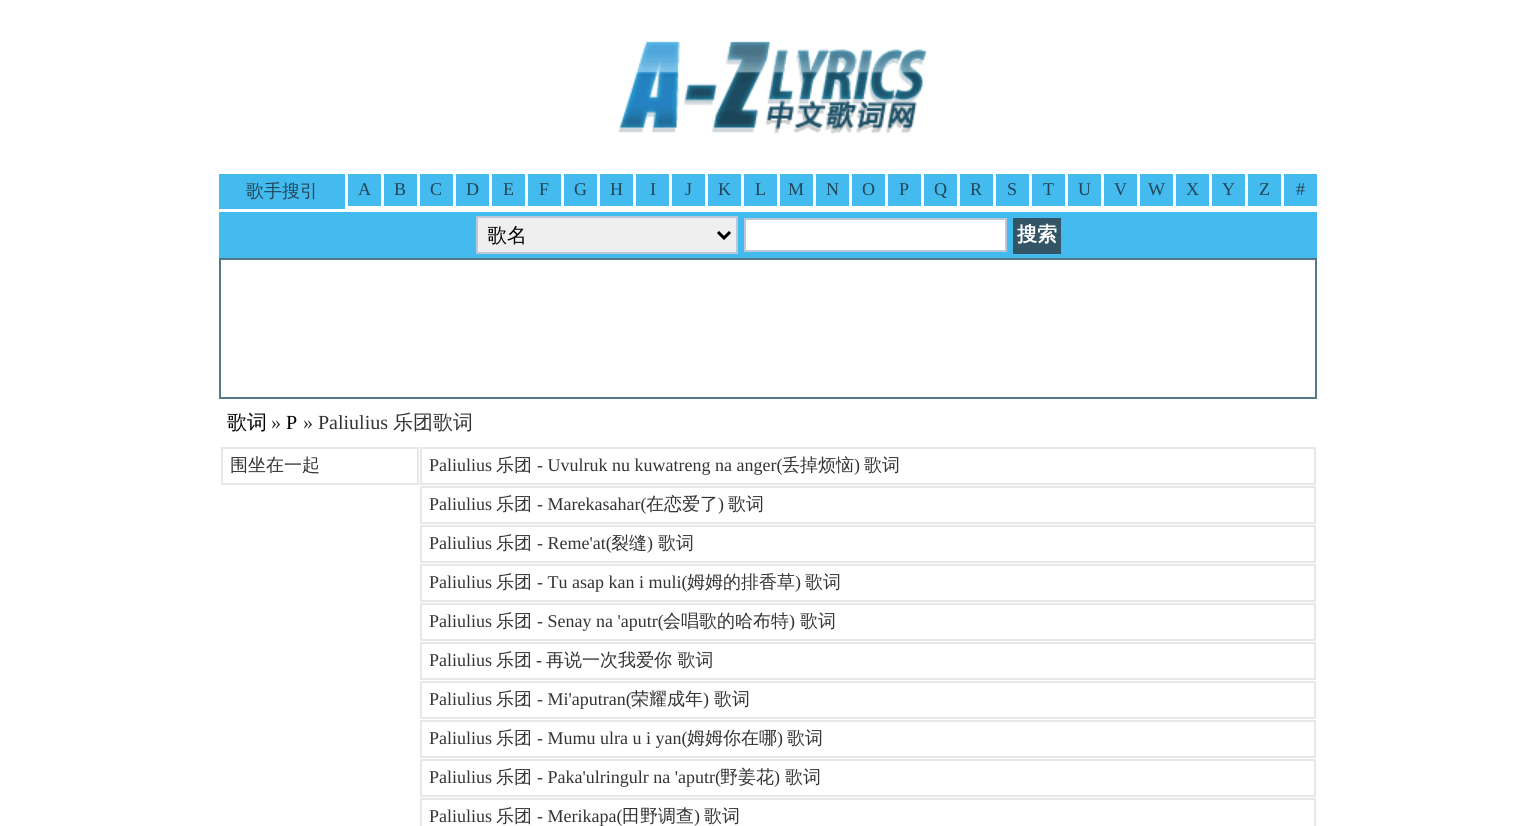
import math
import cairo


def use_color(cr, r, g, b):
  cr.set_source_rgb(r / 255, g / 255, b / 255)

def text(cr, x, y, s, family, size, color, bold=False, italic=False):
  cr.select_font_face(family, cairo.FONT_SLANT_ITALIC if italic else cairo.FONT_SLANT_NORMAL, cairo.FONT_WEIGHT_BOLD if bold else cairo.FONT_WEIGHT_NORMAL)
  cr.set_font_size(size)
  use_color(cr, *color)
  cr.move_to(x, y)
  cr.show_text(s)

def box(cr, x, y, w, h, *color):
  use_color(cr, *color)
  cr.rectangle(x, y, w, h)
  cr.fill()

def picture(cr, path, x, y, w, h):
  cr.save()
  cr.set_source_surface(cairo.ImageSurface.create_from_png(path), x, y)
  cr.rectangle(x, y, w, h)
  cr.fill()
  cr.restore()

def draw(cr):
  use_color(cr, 255, 255, 255)
  cr.paint()
  picture(cr, "img_01.png", 618, 41, 310, 93)
  box(cr, 219, 174, 126, 35, 68, 187, 238)
  box(cr, 348, 174, 33, 32, 68, 187, 238)
  box(cr, 384, 174, 33, 32, 68, 187, 238)
  box(cr, 420, 174, 33, 32, 68, 187, 238)
  box(cr, 456, 174, 33, 32, 68, 187, 238)
  box(cr, 492, 174, 33, 32, 68, 187, 238)
  box(cr, 528, 174, 33, 32, 68, 187, 238)
  box(cr, 564, 174, 33, 32, 68, 187, 238)
  box(cr, 600, 174, 33, 32, 68, 187, 238)
  box(cr, 636, 174, 33, 32, 68, 187, 238)
  box(cr, 672, 174, 33, 32, 68, 187, 238)
  box(cr, 708, 174, 33, 32, 68, 187, 238)
  box(cr, 744, 174, 33, 32, 68, 187, 238)
  box(cr, 780, 174, 33, 32, 68, 187, 238)
  box(cr, 816, 174, 33, 32, 68, 187, 238)
  box(cr, 852, 174, 33, 32, 68, 187, 238)
  box(cr, 888, 174, 33, 32, 68, 187, 238)
  box(cr, 924, 174, 33, 32, 68, 187, 238)
  box(cr, 960, 174, 33, 32, 68, 187, 238)
  box(cr, 996, 174, 33, 32, 68, 187, 238)
  box(cr, 1032, 174, 33, 32, 68, 187, 238)
  box(cr, 1068, 174, 33, 32, 68, 187, 238)
  box(cr, 1104, 174, 33, 32, 68, 187, 238)
  box(cr, 1140, 174, 33, 32, 68, 187, 238)
  box(cr, 1176, 174, 33, 32, 68, 187, 238)
  box(cr, 1212, 174, 33, 32, 68, 187, 238)
  box(cr, 1248, 174, 33, 32, 68, 187, 238)
  box(cr, 1284, 174, 33, 32, 68, 187, 238)
  box(cr, 219, 212, 1098, 46, 68, 187, 238)
  use_color(cr, 239, 239, 239)
  cr.rectangle(477, 217, 260, 36)
  cr.fill_preserve()
  use_color(cr, 189, 199, 216)
  cr.stroke()
  cr.new_path()
  cr.move_to(718, 232)
  cr.line_to(724, 238)
  cr.line_to(730, 232)
  use_color(cr, 0, 0, 0)
  cr.set_line_width(3)
  cr.stroke()
  use_color(cr, 255, 255, 255)
  cr.rectangle(745, 219, 261, 32)
  cr.fill_preserve()
  use_color(cr, 189, 199, 216)
  cr.set_line_width(2)
  cr.stroke()
  box(cr, 1013, 218, 48, 36, 51, 85, 102)
  cr.rectangle(220, 259, 1096, 139)
  use_color(cr, 85, 119, 136)
  cr.stroke()
  cr.rectangle(222, 448, 196, 36)
  use_color(cr, 231, 231, 231)
  cr.stroke()
  cr.rectangle(421, 448, 894, 36)
  cr.stroke()
  cr.rectangle(421, 487, 894, 36)
  cr.stroke()
  cr.rectangle(421, 526, 894, 36)
  cr.stroke()
  cr.rectangle(421, 565, 894, 36)
  cr.stroke()
  cr.rectangle(421, 604, 894, 36)
  cr.stroke()
  cr.rectangle(421, 643, 894, 36)
  cr.stroke()
  cr.rectangle(421, 682, 894, 36)
  cr.stroke()
  cr.rectangle(421, 721, 894, 36)
  cr.stroke()
  cr.rectangle(421, 760, 894, 36)
  cr.stroke()
  cr.rectangle(421, 799, 894, 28)
  cr.stroke()
  text(cr, 246, 197, "歌手搜引", "WenQuanYi Zen Hei Medium", 18, (34, 68, 85))
  text(cr, 358, 195, "A", "Liberation Serif", 18, (34, 68, 85))
  text(cr, 394, 195, "B", "Liberation Serif", 18, (34, 68, 85))
  text(cr, 430, 195, "C", "Liberation Serif", 18, (34, 68, 85))
  text(cr, 466, 195, "D", "Liberation Serif", 18, (34, 68, 85))
  text(cr, 503, 195, "E", "Liberation Serif", 18, (34, 68, 85))
  text(cr, 539, 195, "F", "Liberation Serif", 18, (34, 68, 85))
  text(cr, 574, 195, "G", "Liberation Serif", 18, (34, 68, 85))
  text(cr, 610, 195, "H", "Liberation Serif", 18, (34, 68, 85))
  text(cr, 650, 195, "I", "Liberation Serif", 18, (34, 68, 85))
  text(cr, 685, 195, "J", "Liberation Serif", 18, (34, 68, 85))
  text(cr, 718, 195, "K", "Liberation Serif", 18, (34, 68, 85))
  text(cr, 755, 195, "L", "Liberation Serif", 18, (34, 68, 85))
  text(cr, 788, 195, "M", "Liberation Serif", 18, (34, 68, 85))
  text(cr, 826, 195, "N", "Liberation Serif", 18, (34, 68, 85))
  text(cr, 862, 195, "O", "Liberation Serif", 18, (34, 68, 85))
  text(cr, 899, 195, "P", "Liberation Serif", 18, (34, 68, 85))
  text(cr, 934, 195, "Q", "Liberation Serif", 18, (34, 68, 85))
  text(cr, 970, 195, "R", "Liberation Serif", 18, (34, 68, 85))
  text(cr, 1007, 195, "S", "Liberation Serif", 18, (34, 68, 85))
  text(cr, 1043, 195, "T", "Liberation Serif", 18, (34, 68, 85))
  text(cr, 1078, 195, "U", "Liberation Serif", 18, (34, 68, 85))
  text(cr, 1114, 195, "V", "Liberation Serif", 18, (34, 68, 85))
  text(cr, 1148, 195, "W", "Liberation Serif", 18, (34, 68, 85))
  text(cr, 1186, 195, "X", "Liberation Serif", 18, (34, 68, 85))
  text(cr, 1222, 195, "Y", "Liberation Serif", 18, (34, 68, 85))
  text(cr, 1259, 195, "Z", "Liberation Serif", 18, (34, 68, 85))
  text(cr, 1296, 195, "#", "Liberation Serif", 18, (34, 68, 85))
  cr.save()
  cr.rectangle(488, 222, 220, 26)
  cr.clip()
  text(cr, 487, 242, "歌名", "WenQuanYi Zen Hei Medium", 20, (0, 0, 0))
  cr.restore()
  text(cr, 1017, 241, "搜索", "WenQuanYi Zen Hei", 20, (255, 255, 255), bold=True)
  text(cr, 227, 429, "歌词", "WenQuanYi Zen Hei Medium", 20, (0, 0, 0))
  text(cr, 271, 429, "»", "Liberation Serif", 20, (51, 51, 51))
  text(cr, 286, 429, "P", "Liberation Serif", 20, (0, 0, 0))
  text(cr, 303, 429, "» Paliulius", "Liberation Serif", 20, (51, 51, 51))
  text(cr, 393, 429, "乐团歌词", "WenQuanYi Zen Hei Medium", 20, (51, 51, 51))
  text(cr, 230, 471, "围坐在一起", "WenQuanYi Zen Hei Medium", 18, (51, 51, 51))
  text(cr, 429, 471, "Paliulius", "Liberation Serif", 18, (51, 51, 51))
  text(cr, 496, 471, "乐团", "WenQuanYi Zen Hei Medium", 18, (51, 51, 51))
  text(cr, 537, 471, "- Uvulruk nu kuwatreng na anger(", "Liberation Serif", 18, (51, 51, 51))
  text(cr, 782, 471, "丢掉烦恼", "WenQuanYi Zen Hei Medium", 18, (51, 51, 51))
  text(cr, 854, 471, ")", "Liberation Serif", 18, (51, 51, 51))
  text(cr, 864, 471, "歌词", "WenQuanYi Zen Hei Medium", 18, (51, 51, 51))
  text(cr, 429, 510, "Paliulius", "Liberation Serif", 18, (51, 51, 51))
  text(cr, 496, 510, "乐团", "WenQuanYi Zen Hei Medium", 18, (51, 51, 51))
  text(cr, 537, 510, "- Marekasahar(", "Liberation Serif", 18, (51, 51, 51))
  text(cr, 646, 510, "在恋爱了", "WenQuanYi Zen Hei Medium", 18, (51, 51, 51))
  text(cr, 718, 510, ")", "Liberation Serif", 18, (51, 51, 51))
  text(cr, 728, 510, "歌词", "WenQuanYi Zen Hei Medium", 18, (51, 51, 51))
  text(cr, 429, 549, "Paliulius", "Liberation Serif", 18, (51, 51, 51))
  text(cr, 496, 549, "乐团", "WenQuanYi Zen Hei Medium", 18, (51, 51, 51))
  text(cr, 537, 549, "- Reme'at(", "Liberation Serif", 18, (51, 51, 51))
  text(cr, 611, 549, "裂缝", "WenQuanYi Zen Hei Medium", 18, (51, 51, 51))
  text(cr, 647, 549, ")", "Liberation Serif", 18, (51, 51, 51))
  text(cr, 658, 549, "歌词", "WenQuanYi Zen Hei Medium", 18, (51, 51, 51))
  text(cr, 429, 588, "Paliulius", "Liberation Serif", 18, (51, 51, 51))
  text(cr, 496, 588, "乐团", "WenQuanYi Zen Hei Medium", 18, (51, 51, 51))
  text(cr, 537, 588, "- Tu asap kan i muli(", "Liberation Serif", 18, (51, 51, 51))
  text(cr, 687, 588, "姆姆的排香草", "WenQuanYi Zen Hei Medium", 18, (51, 51, 51))
  text(cr, 795, 588, ")", "Liberation Serif", 18, (51, 51, 51))
  text(cr, 805, 588, "歌词", "WenQuanYi Zen Hei Medium", 18, (51, 51, 51))
  text(cr, 429, 627, "Paliulius", "Liberation Serif", 18, (51, 51, 51))
  text(cr, 496, 627, "乐团", "WenQuanYi Zen Hei Medium", 18, (51, 51, 51))
  text(cr, 537, 627, "- Senay na 'aputr(", "Liberation Serif", 18, (51, 51, 51))
  text(cr, 663, 627, "会唱歌的哈布特", "WenQuanYi Zen Hei Medium", 18, (51, 51, 51))
  text(cr, 789, 627, ")", "Liberation Serif", 18, (51, 51, 51))
  text(cr, 800, 627, "歌词", "WenQuanYi Zen Hei Medium", 18, (51, 51, 51))
  text(cr, 429, 666, "Paliulius", "Liberation Serif", 18, (51, 51, 51))
  text(cr, 496, 666, "乐团", "WenQuanYi Zen Hei Medium", 18, (51, 51, 51))
  text(cr, 536, 666, "-", "Liberation Serif", 18, (51, 51, 51))
  text(cr, 546, 666, "再说一次我爱你 歌词", "WenQuanYi Zen Hei Medium", 18, (51, 51, 51))
  text(cr, 429, 705, "Paliulius", "Liberation Serif", 18, (51, 51, 51))
  text(cr, 496, 705, "乐团", "WenQuanYi Zen Hei Medium", 18, (51, 51, 51))
  text(cr, 537, 705, "- Mi'aputran(", "Liberation Serif", 18, (51, 51, 51))
  text(cr, 631, 705, "荣耀成年", "WenQuanYi Zen Hei Medium", 18, (51, 51, 51))
  text(cr, 703, 705, ")", "Liberation Serif", 18, (51, 51, 51))
  text(cr, 714, 705, "歌词", "WenQuanYi Zen Hei Medium", 18, (51, 51, 51))
  text(cr, 429, 744, "Paliulius", "Liberation Serif", 18, (51, 51, 51))
  text(cr, 496, 744, "乐团", "WenQuanYi Zen Hei Medium", 18, (51, 51, 51))
  text(cr, 537, 744, "- Mumu ulra u i yan(", "Liberation Serif", 18, (51, 51, 51))
  text(cr, 687, 744, "姆姆你在哪", "WenQuanYi Zen Hei Medium", 18, (51, 51, 51))
  text(cr, 777, 744, ")", "Liberation Serif", 18, (51, 51, 51))
  text(cr, 787, 744, "歌词", "WenQuanYi Zen Hei Medium", 18, (51, 51, 51))
  text(cr, 429, 783, "Paliulius", "Liberation Serif", 18, (51, 51, 51))
  text(cr, 496, 783, "乐团", "WenQuanYi Zen Hei Medium", 18, (51, 51, 51))
  text(cr, 537, 783, "- Paka'ulringulr na 'aputr(", "Liberation Serif", 18, (51, 51, 51))
  text(cr, 720, 783, "野姜花", "WenQuanYi Zen Hei Medium", 18, (51, 51, 51))
  text(cr, 774, 783, ")", "Liberation Serif", 18, (51, 51, 51))
  text(cr, 785, 783, "歌词", "WenQuanYi Zen Hei Medium", 18, (51, 51, 51))
  text(cr, 429, 822, "Paliulius", "Liberation Serif", 18, (51, 51, 51))
  text(cr, 496, 822, "乐团", "WenQuanYi Zen Hei Medium", 18, (51, 51, 51))
  text(cr, 537, 822, "- Merikapa(", "Liberation Serif", 18, (51, 51, 51))
  text(cr, 622, 822, "田野调查", "WenQuanYi Zen Hei Medium", 18, (51, 51, 51))
  text(cr, 694, 822, ")", "Liberation Serif", 18, (51, 51, 51))
  text(cr, 704, 822, "歌词", "WenQuanYi Zen Hei Medium", 18, (51, 51, 51))


surface = cairo.ImageSurface(cairo.FORMAT_RGB24, 1536, 826)
cr = cairo.Context(surface)
options = cairo.FontOptions()
options.set_hint_metrics(cairo.HINT_METRICS_OFF)
options.set_hint_style(cairo.HINT_STYLE_NONE)
cr.set_font_options(options)
cr.set_miter_limit(4)
draw(cr)
surface.write_to_png("out.png")
